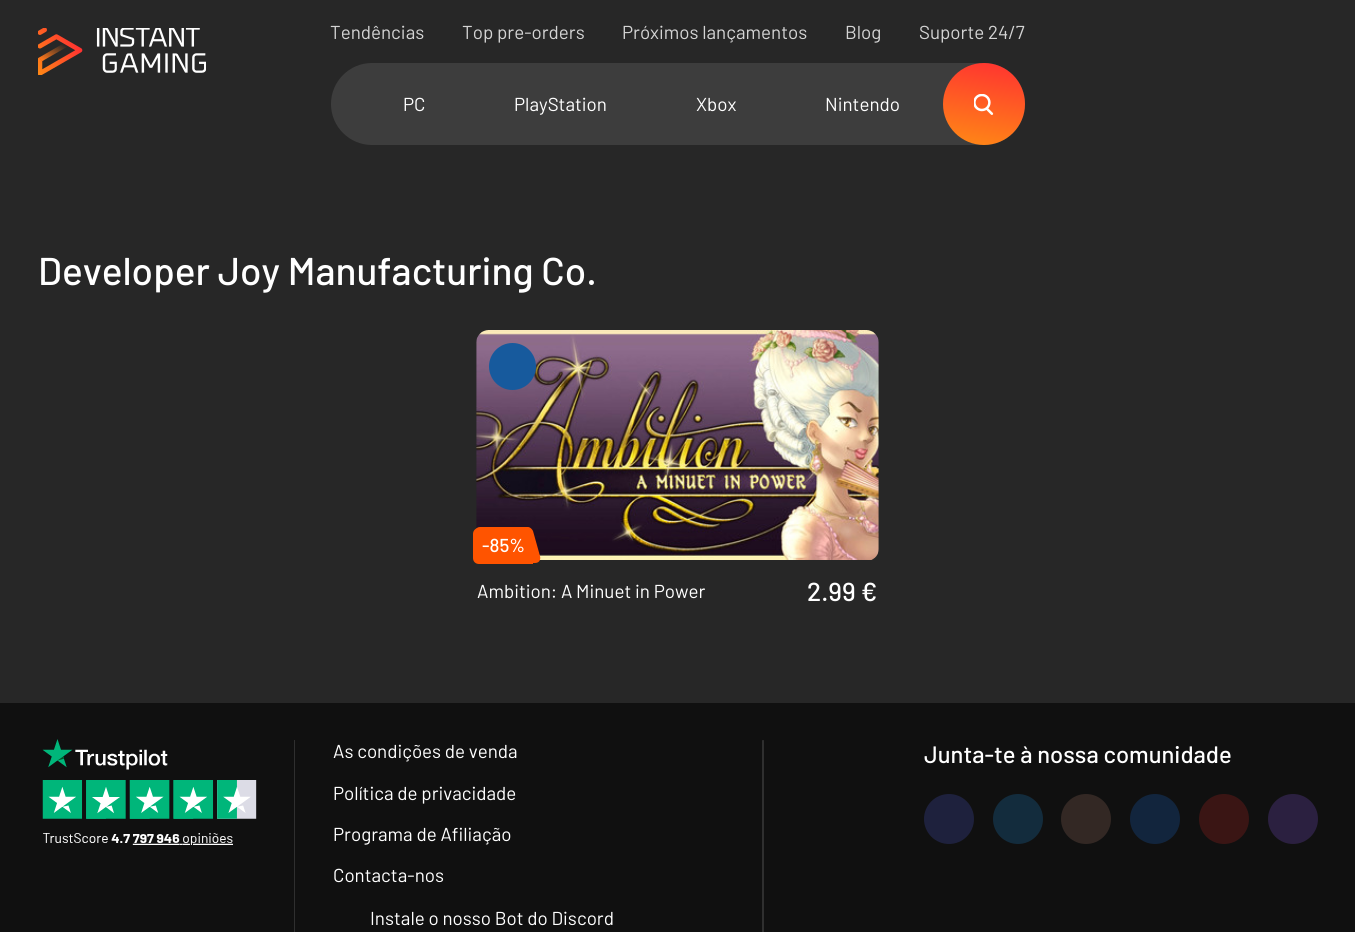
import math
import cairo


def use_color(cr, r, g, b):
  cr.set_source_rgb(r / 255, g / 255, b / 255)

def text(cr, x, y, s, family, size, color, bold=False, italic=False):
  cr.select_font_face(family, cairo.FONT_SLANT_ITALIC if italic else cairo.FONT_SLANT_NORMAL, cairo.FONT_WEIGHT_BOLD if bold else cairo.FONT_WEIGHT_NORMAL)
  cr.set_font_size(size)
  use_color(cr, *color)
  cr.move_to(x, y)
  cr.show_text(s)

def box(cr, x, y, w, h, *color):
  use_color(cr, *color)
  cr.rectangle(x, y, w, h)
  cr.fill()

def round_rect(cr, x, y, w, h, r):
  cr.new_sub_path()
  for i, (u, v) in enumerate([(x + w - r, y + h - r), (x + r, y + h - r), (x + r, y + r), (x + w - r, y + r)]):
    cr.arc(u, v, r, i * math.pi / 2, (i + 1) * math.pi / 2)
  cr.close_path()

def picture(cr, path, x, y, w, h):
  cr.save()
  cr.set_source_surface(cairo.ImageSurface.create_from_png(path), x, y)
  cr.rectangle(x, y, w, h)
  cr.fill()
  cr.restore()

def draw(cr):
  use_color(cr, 39, 39, 39)
  cr.paint()
  picture(cr, "img_01.png", 38, 28, 168, 47)
  use_color(cr, 61, 61, 61)
  round_rect(cr, 331, 63, 694, 82, 41)
  cr.fill()
  gradient = cairo.LinearGradient(975, 151, 991, 57)
  gradient.add_color_stop_rgba(0, 1, 0.541, 0.082, 1)
  gradient.add_color_stop_rgba(1, 1, 0.192, 0.192, 1)
  cr.set_source(gradient)
  cr.arc(984, 104, 41, 0, 2 * math.pi)
  cr.fill()
  picture(cr, "img_02.png", 974, 94, 20, 21)
  picture(cr, "img_03.png", 476, 330, 403, 230)
  use_color(cr, 23, 90, 157)
  cr.arc(512.5, 366.5, 23.5, 0, 2 * math.pi)
  cr.fill()
  use_color(cr, 255, 84, 0)
  cr.new_path()
  cr.move_to(479, 528)
  cr.line_to(527, 528)
  cr.curve_to(530.5, 528, 533, 530.5, 533, 534)
  cr.line_to(533, 564)
  cr.line_to(479, 564)
  cr.curve_to(475.5, 564, 473, 561.5, 473, 558)
  cr.line_to(473, 534)
  cr.curve_to(473, 530.5, 475.5, 528, 479, 528)
  cr.close_path()
  cr.fill()
  cr.new_path()
  cr.move_to(480, 527)
  cr.line_to(528, 527)
  cr.curve_to(530, 527, 532, 529, 533, 531)
  cr.line_to(540, 556)
  cr.curve_to(541, 560, 539, 563, 535, 563)
  cr.line_to(487, 563)
  cr.curve_to(485, 563, 483, 562, 482, 560)
  cr.line_to(475, 535)
  cr.curve_to(474, 531, 476, 527, 480, 527)
  cr.close_path()
  cr.fill()
  box(cr, 0, 703, 1355, 229, 16, 16, 16)
  picture(cr, "img_04.png", 42, 739, 215, 106)
  use_color(cr, 47, 47, 47)
  cr.new_path()
  cr.move_to(294, 740)
  cr.line_to(295, 740)
  cr.line_to(295, 741)
  cr.close_path()
  cr.fill()
  cr.set_source_rgba(0.667, 0.667, 0.667, 0.2)
  cr.new_path()
  cr.move_to(294, 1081)
  cr.line_to(294, 740)
  cr.line_to(295, 741)
  cr.line_to(295, 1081)
  cr.close_path()
  cr.fill()
  use_color(cr, 47, 47, 47)
  cr.new_path()
  cr.move_to(762.5, 740)
  cr.line_to(764, 740)
  cr.line_to(764, 741)
  cr.close_path()
  cr.fill()
  cr.set_source_rgba(0.667, 0.667, 0.667, 0.2)
  cr.new_path()
  cr.move_to(762, 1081)
  cr.line_to(762, 740)
  cr.line_to(764, 741)
  cr.line_to(764, 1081)
  cr.close_path()
  cr.fill()
  use_color(cr, 30, 33, 61)
  cr.arc(949, 819, 25, 0, 2 * math.pi)
  cr.fill()
  use_color(cr, 19, 44, 61)
  cr.arc(1018, 819, 25, 0, 2 * math.pi)
  cr.fill()
  use_color(cr, 51, 40, 36)
  cr.arc(1086, 819, 25, 0, 2 * math.pi)
  cr.fill()
  use_color(cr, 18, 37, 61)
  cr.arc(1155, 819, 25, 0, 2 * math.pi)
  cr.fill()
  use_color(cr, 58, 21, 20)
  cr.arc(1224, 819, 25, 0, 2 * math.pi)
  cr.fill()
  use_color(cr, 43, 32, 64)
  cr.arc(1293, 819, 25, 0, 2 * math.pi)
  cr.fill()
  text(cr, 330, 39, "Tendências", "Barlow", 18.75, (212, 212, 212))
  text(cr, 462, 39, "Top pre-orders", "Barlow", 18.75, (212, 212, 212))
  text(cr, 622, 39, "Próximos lançamentos", "Barlow", 18.75, (212, 212, 212))
  text(cr, 845, 39, "Blog", "Barlow", 18.75, (212, 212, 212))
  text(cr, 919, 39, "Suporte 24/7", "Barlow", 18.75, (212, 212, 212))
  text(cr, 403, 111, "PC", "Barlow", 18.75, (255, 255, 255))
  text(cr, 514, 111, "PlayStation", "Barlow", 18.75, (255, 255, 255))
  text(cr, 696, 111, "Xbox", "Barlow", 18.75, (255, 255, 255))
  text(cr, 825, 111, "Nintendo", "Barlow", 18.75, (255, 255, 255))
  text(cr, 38, 285, "Developer Joy Manufacturing Co.", "Barlow Medium", 38.75, (255, 255, 255))
  text(cr, 482, 552, "-85%", "Barlow Medium", 18.75, (255, 255, 255))
  text(cr, 477, 598, "Ambition: A Minuet in Power", "Barlow", 18.75, (255, 255, 255))
  text(cr, 807, 601, "2.99 €", "Barlow Medium", 26, (255, 255, 255))
  text(cr, 333, 758, "As condições de venda", "Barlow", 18.75, (255, 255, 255))
  text(cr, 333, 800, "Política de privacidade", "Barlow", 18.75, (255, 255, 255))
  text(cr, 333, 841, "Programa de Afiliação", "Barlow", 18.75, (255, 255, 255))
  text(cr, 333, 882, "Contacta-nos", "Barlow", 18.75, (255, 255, 255))
  text(cr, 370, 925, "Instale o nosso Bot do Discord", "Barlow", 18.75, (255, 255, 255))
  text(cr, 924, 763, "Junta-te à nossa comunidade", "Barlow Medium", 23.75, (255, 255, 255))


surface = cairo.ImageSurface(cairo.FORMAT_RGB24, 1355, 932)
cr = cairo.Context(surface)
options = cairo.FontOptions()
options.set_hint_metrics(cairo.HINT_METRICS_OFF)
options.set_hint_style(cairo.HINT_STYLE_NONE)
cr.set_font_options(options)
cr.set_miter_limit(4)
draw(cr)
surface.write_to_png("out.png")
